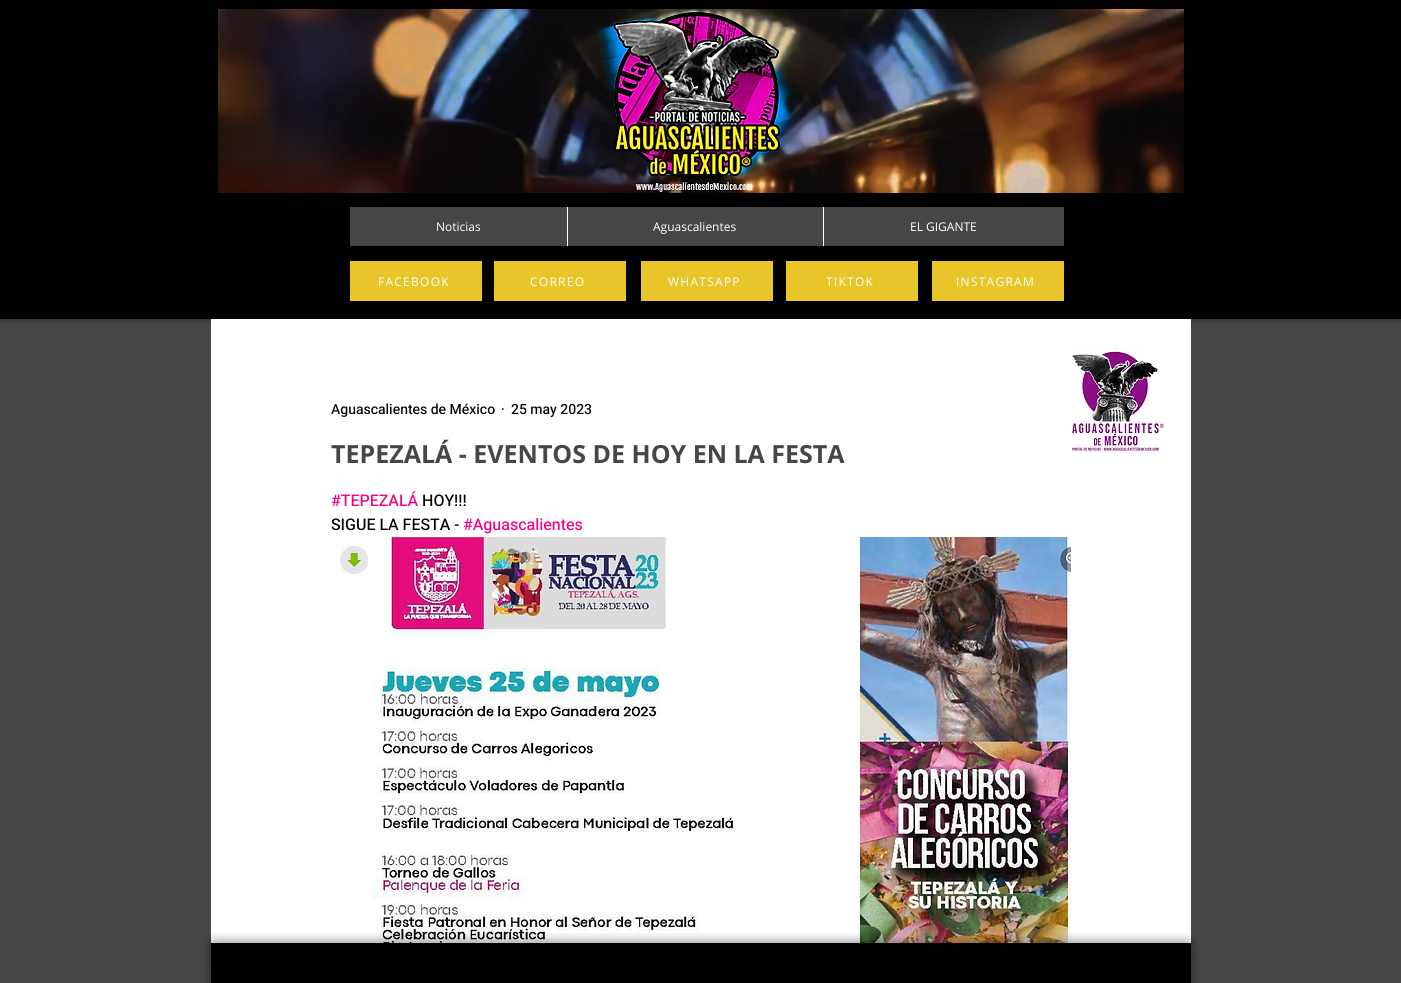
import math
import cairo


def use_color(cr, r, g, b):
  cr.set_source_rgb(r / 255, g / 255, b / 255)

def text(cr, x, y, s, family, size, color, bold=False, italic=False):
  cr.select_font_face(family, cairo.FONT_SLANT_ITALIC if italic else cairo.FONT_SLANT_NORMAL, cairo.FONT_WEIGHT_BOLD if bold else cairo.FONT_WEIGHT_NORMAL)
  cr.set_font_size(size)
  use_color(cr, *color)
  cr.move_to(x, y)
  cr.show_text(s)

def spaced_text(cr, x, y, s, letter, word):
  cr.move_to(x, y)
  for ch in s:
    cr.show_text(ch)
    cr.rel_move_to(letter + word * (ch == ' '), 0)

def box(cr, x, y, w, h, *color):
  use_color(cr, *color)
  cr.rectangle(x, y, w, h)
  cr.fill()

def round_rect(cr, x, y, w, h, r):
  cr.new_sub_path()
  for i, (u, v) in enumerate([(x + w - r, y + h - r), (x + r, y + h - r), (x + r, y + r), (x + w - r, y + r)]):
    cr.arc(u, v, r, i * math.pi / 2, (i + 1) * math.pi / 2)
  cr.close_path()

def shadow(cr, x, y, w, h, r, blur, alpha):
  cr.push_group_with_content(cairo.CONTENT_ALPHA)
  cr.set_operator(cairo.OPERATOR_SOURCE)
  for i in range(15, -16, -2):
    e = blur * i / 6
    if min(w, h) + 2 * e > 0:
      cr.set_source_rgba(0, 0, 0, alpha * math.erfc((i - 1) / 8.5) / 2)
      round_rect(cr, x - e, y - e, w + 2 * e, h + 2 * e, max(0, min(r + e + blur * .6, min(w, h) / 2 + e)))
      cr.fill()
  cr.mask(cr.pop_group())

def picture(cr, path, x, y, w, h):
  cr.save()
  cr.set_source_surface(cairo.ImageSurface.create_from_png(path), x, y)
  cr.rectangle(x, y, w, h)
  cr.fill()
  cr.restore()

def draw(cr):
  use_color(cr, 70, 70, 70)
  cr.paint()
  use_color(cr, 0, 0, 0)
  shadow(cr, 0, 0, 1401, 319, 0, 2.5, 0.5)
  box(cr, 0, 0, 1401, 319, 0, 0, 0)
  picture(cr, "img_01.png", 218, 9, 966, 184)
  box(cr, 350, 207, 714, 39, 70, 70, 70)
  box(cr, 567, 207, 1, 39, 255, 255, 255)
  box(cr, 823, 207, 1, 39, 255, 255, 255)
  box(cr, 350, 261, 132, 40, 232, 197, 41)
  box(cr, 494, 261, 132, 40, 232, 197, 41)
  box(cr, 641, 261, 132, 40, 232, 197, 41)
  box(cr, 786, 261, 132, 40, 232, 197, 41)
  box(cr, 932, 261, 132, 40, 232, 197, 41)
  box(cr, 211, 319, 980, 624, 255, 255, 255)
  picture(cr, "img_02.png", 340, 537, 731, 406)
  picture(cr, "img_03.png", 1071, 346, 97, 109)
  picture(cr, "img_04.png", 204, 933, 42, 50)
  picture(cr, "img_05.png", 246, 933, 910, 10)
  picture(cr, "img_06.png", 1156, 933, 42, 50)
  box(cr, 211, 943, 980, 40, 0, 0, 0)
  text(cr, 436, 231, "Noticias", "Open Sans", 12, (255, 255, 255))
  text(cr, 653, 231, "Aguascalientes", "Open Sans", 12, (255, 255, 255))
  text(cr, 910, 231, "EL GIGANTE", "Open Sans", 12, (255, 255, 255))
  spaced_text(cr, 378, 286, "FACEBOOK", 1.25, 0)
  spaced_text(cr, 530, 286, "CORREO", 1.25, 0)
  spaced_text(cr, 668, 286, "WHATSAPP", 1.25, 0)
  spaced_text(cr, 826, 286, "TIKTOK", 1.25, 0)
  spaced_text(cr, 956, 286, "INSTAGRAM", 1.25, 0)
  text(cr, 331, 414, "Aguascalientes de México", "Heebo Medium", 14, (0, 0, 0))
  text(cr, 501, 414, "·", "Heebo Medium", 14, (0, 0, 0))
  text(cr, 511, 414, "25 may 2023", "Heebo Medium", 14, (0, 0, 0))
  text(cr, 331, 463, "TEPEZALÁ - EVENTOS DE HOY EN LA FESTA", "Open Sans", 25, (70, 70, 70), bold=True)
  text(cr, 331, 506, "#TEPEZALÁ", "Heebo Medium", 16, (244, 0, 130))
  text(cr, 422, 506, "HOY!!!", "Heebo Medium", 16, (0, 0, 0))
  text(cr, 331, 530, "SIGUE LA FESTA -", "Heebo Medium", 16, (0, 0, 0))
  text(cr, 463, 530, "#Aguascalientes", "Heebo Medium", 16, (244, 0, 130))


surface = cairo.ImageSurface(cairo.FORMAT_RGB24, 1401, 983)
cr = cairo.Context(surface)
options = cairo.FontOptions()
options.set_hint_metrics(cairo.HINT_METRICS_OFF)
options.set_hint_style(cairo.HINT_STYLE_NONE)
cr.set_font_options(options)
cr.set_miter_limit(4)
draw(cr)
surface.write_to_png("out.png")
